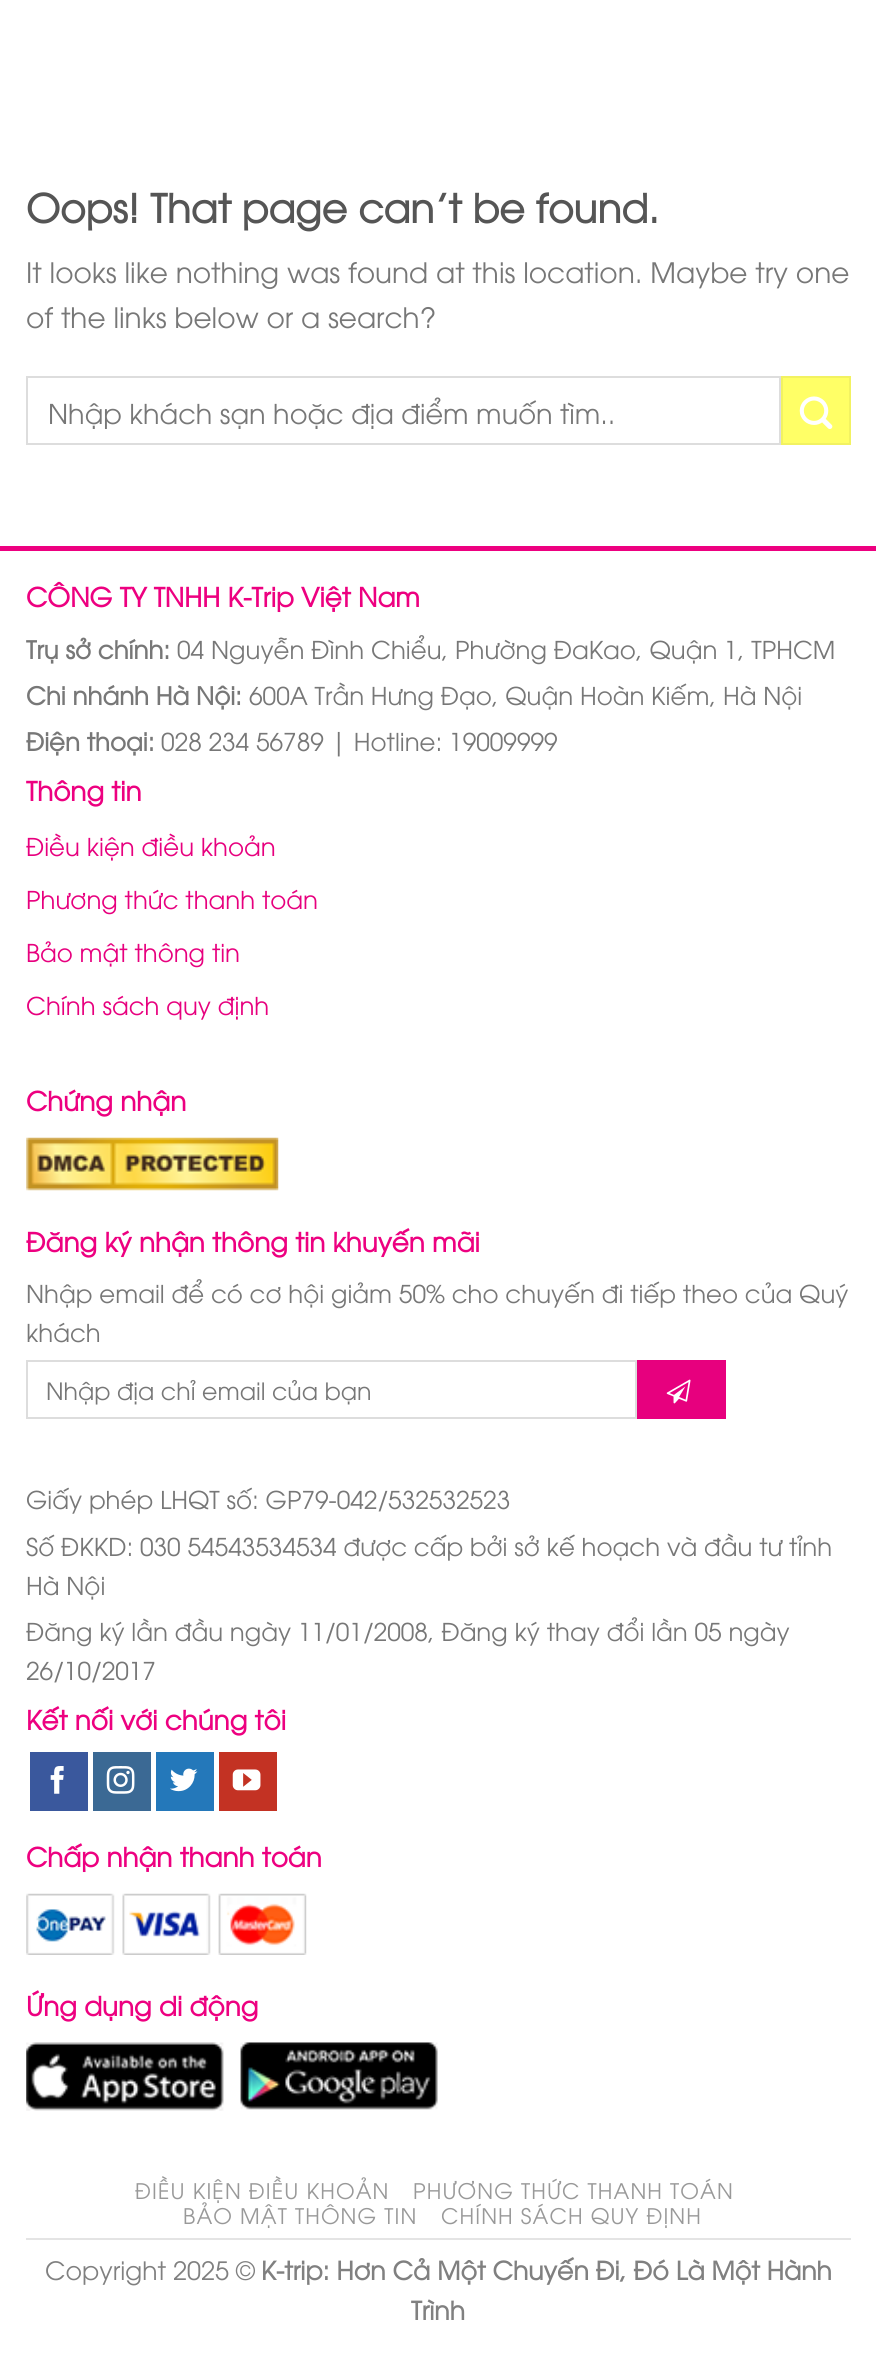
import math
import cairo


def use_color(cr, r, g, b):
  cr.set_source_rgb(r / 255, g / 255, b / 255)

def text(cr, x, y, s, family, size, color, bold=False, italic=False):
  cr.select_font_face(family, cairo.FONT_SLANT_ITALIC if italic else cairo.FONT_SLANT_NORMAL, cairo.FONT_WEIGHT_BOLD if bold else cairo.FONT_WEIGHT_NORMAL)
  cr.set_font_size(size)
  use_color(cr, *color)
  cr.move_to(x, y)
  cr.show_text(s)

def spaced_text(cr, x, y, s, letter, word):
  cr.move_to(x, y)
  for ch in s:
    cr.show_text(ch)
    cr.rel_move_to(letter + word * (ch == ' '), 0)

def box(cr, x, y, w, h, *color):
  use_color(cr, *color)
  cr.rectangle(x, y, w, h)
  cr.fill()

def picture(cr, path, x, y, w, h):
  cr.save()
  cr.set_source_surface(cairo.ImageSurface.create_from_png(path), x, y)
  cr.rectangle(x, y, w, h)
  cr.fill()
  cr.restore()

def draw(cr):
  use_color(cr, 255, 255, 255)
  cr.paint()
  cr.rectangle(27, 377, 753, 67)
  use_color(cr, 221, 221, 221)
  cr.stroke()
  use_color(cr, 255, 255, 102)
  cr.rectangle(782, 377, 68, 67)
  cr.fill_preserve()
  use_color(cr, 242, 242, 97)
  cr.stroke()
  picture(cr, "img_01.png", 799, 396, 34, 33)
  box(cr, 0, 546, 876, 5, 237, 0, 128)
  picture(cr, "img_02.png", 26, 1137, 253, 54)
  cr.rectangle(27, 1361, 609, 57)
  use_color(cr, 221, 221, 221)
  cr.stroke()
  box(cr, 637, 1360, 89, 59, 231, 0, 126)
  picture(cr, "img_03.png", 666, 1379, 25, 25)
  box(cr, 30, 1752, 58, 59, 58, 88, 157)
  picture(cr, "img_04.png", 50, 1766, 14, 28)
  box(cr, 93, 1752, 58, 59, 59, 105, 148)
  picture(cr, "img_05.png", 106, 1766, 29, 28)
  box(cr, 156, 1752, 58, 59, 36, 120, 186)
  picture(cr, "img_06.png", 170, 1768, 28, 24)
  box(cr, 219, 1752, 58, 59, 195, 50, 35)
  picture(cr, "img_07.png", 232, 1769, 29, 22)
  picture(cr, "img_08.png", 26, 1893, 281, 62)
  picture(cr, "img_09.png", 26, 2042, 412, 69)
  box(cr, 26, 2238, 825, 2, 228, 228, 228)
  text(cr, 26, 223, "Oops! That page can’t be found.", "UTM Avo", 39.25, (85, 85, 85), bold=True)
  text(cr, 26, 283, "It looks like nothing was found at this location. Maybe try one", "UTM Avo", 28, (119, 119, 119))
  text(cr, 26, 328, "of the links below or a search?", "UTM Avo", 28, (119, 119, 119))
  cr.save()
  cr.rectangle(49, 392, 704, 37)
  cr.clip()
  text(cr, 48, 424, "Nhập khách sạn hoặc địa điểm muốn tìm..", "UTM Avo", 27.2, (119, 119, 119))
  cr.restore()
  text(cr, 26, 607, "CÔNG TY TNHH K-Trip Việt Nam", "UTM Avo", 26.25, (237, 0, 128), bold=True)
  text(cr, 26, 659, "Trụ sở chính:", "UTM Avo", 24.5, (119, 119, 119), bold=True)
  text(cr, 177, 659, "04 Nguyễn Đình Chiểu, Phường ĐaKao, Quận 1, TPHCM", "UTM Avo", 24.5, (119, 119, 119))
  text(cr, 26, 705, "Chi nhánh Hà Nội:", "UTM Avo", 24.5, (119, 119, 119), bold=True)
  text(cr, 249, 705, "600A Trần Hưng Đạo, Quận Hoàn Kiếm, Hà Nội", "UTM Avo", 24.5, (119, 119, 119))
  text(cr, 26, 751, "Điện thoại:", "UTM Avo", 24.5, (119, 119, 119), bold=True)
  text(cr, 161, 751, "028 234 56789 | Hotline: 19009999", "UTM Avo", 24.5, (119, 119, 119))
  text(cr, 26, 801, "Thông tin", "UTM Avo", 26.25, (237, 0, 128), bold=True)
  text(cr, 26, 856, "Điều kiện điều khoản", "UTM Avo", 24.5, (231, 0, 126))
  text(cr, 26, 909, "Phương thức thanh toán", "UTM Avo", 24.5, (231, 0, 126))
  text(cr, 26, 962, "Bảo mật thông tin", "UTM Avo", 24.5, (231, 0, 126))
  text(cr, 26, 1015, "Chính sách quy định", "UTM Avo", 24.5, (231, 0, 126))
  text(cr, 26, 1111, "Chứng nhận", "UTM Avo", 26.25, (237, 0, 128), bold=True)
  text(cr, 26, 1252, "Đăng ký nhận thông tin khuyến mãi", "UTM Avo", 26.25, (237, 0, 128), bold=True)
  text(cr, 26, 1303, "Nhập email để có cơ hội giảm 50% cho chuyến đi tiếp theo của Quý", "UTM Avo", 24.5, (119, 119, 119))
  text(cr, 26, 1342, "khách", "UTM Avo", 24.5, (119, 119, 119))
  text(cr, 46, 1400, "Nhập địa chỉ email của bạn", "UTM Avo", 23.75, (119, 119, 119))
  text(cr, 26, 1509, "Giấy phép LHQT số: GP79-042/532532523", "UTM Avo", 24.5, (119, 119, 119))
  text(cr, 26, 1556, "Số ĐKKD: 030 54543534534 được cấp bởi sở kế hoạch và đầu tư tỉnh", "UTM Avo", 24.5, (119, 119, 119))
  text(cr, 26, 1595, "Hà Nội", "UTM Avo", 24.5, (119, 119, 119))
  text(cr, 26, 1641, "Đăng ký lần đầu ngày 11/01/2008, Đăng ký thay đổi lần 05 ngày", "UTM Avo", 24.5, (119, 119, 119))
  text(cr, 26, 1680, "26/10/2017", "UTM Avo", 24.5, (119, 119, 119))
  text(cr, 26, 1730, "Kết nối với chúng tôi", "UTM Avo", 26.25, (237, 0, 128), bold=True)
  text(cr, 26, 1867, "Chấp nhận thanh toán", "UTM Avo", 26.25, (237, 0, 128), bold=True)
  text(cr, 26, 2016, "Ứng dụng di động", "UTM Avo", 26.25, (237, 0, 128), bold=True)
  cr.select_font_face("UTM Avo")
  cr.set_font_size(21.4)
  use_color(cr, 153, 153, 153)
  spaced_text(cr, 135, 2199, "ĐIỀU KIỆN ĐIỀU KHOẢN", 1.1, 0)
  spaced_text(cr, 413, 2199, "PHƯƠNG THỨC THANH TOÁN", 1.1, 0)
  spaced_text(cr, 183, 2224, "BẢO MẬT THÔNG TIN", 1.1, 0)
  spaced_text(cr, 441, 2224, "CHÍNH SÁCH QUY ĐỊNH", 1.1, 0)
  text(cr, 45, 2280, "Copyright 2025 ©", "UTM Avo", 25.2, (128, 128, 128))
  text(cr, 261, 2280, "K-trip: Hơn Cả Một Chuyến Đi, Đó Là Một Hành", "UTM Avo", 25.2, (128, 128, 128), bold=True)
  text(cr, 411, 2320, "Trình", "UTM Avo", 25.2, (128, 128, 128), bold=True)


surface = cairo.ImageSurface(cairo.FORMAT_RGB24, 876, 2355)
cr = cairo.Context(surface)
options = cairo.FontOptions()
options.set_hint_metrics(cairo.HINT_METRICS_OFF)
options.set_hint_style(cairo.HINT_STYLE_NONE)
cr.set_font_options(options)
cr.set_miter_limit(4)
draw(cr)
surface.write_to_png("out.png")
